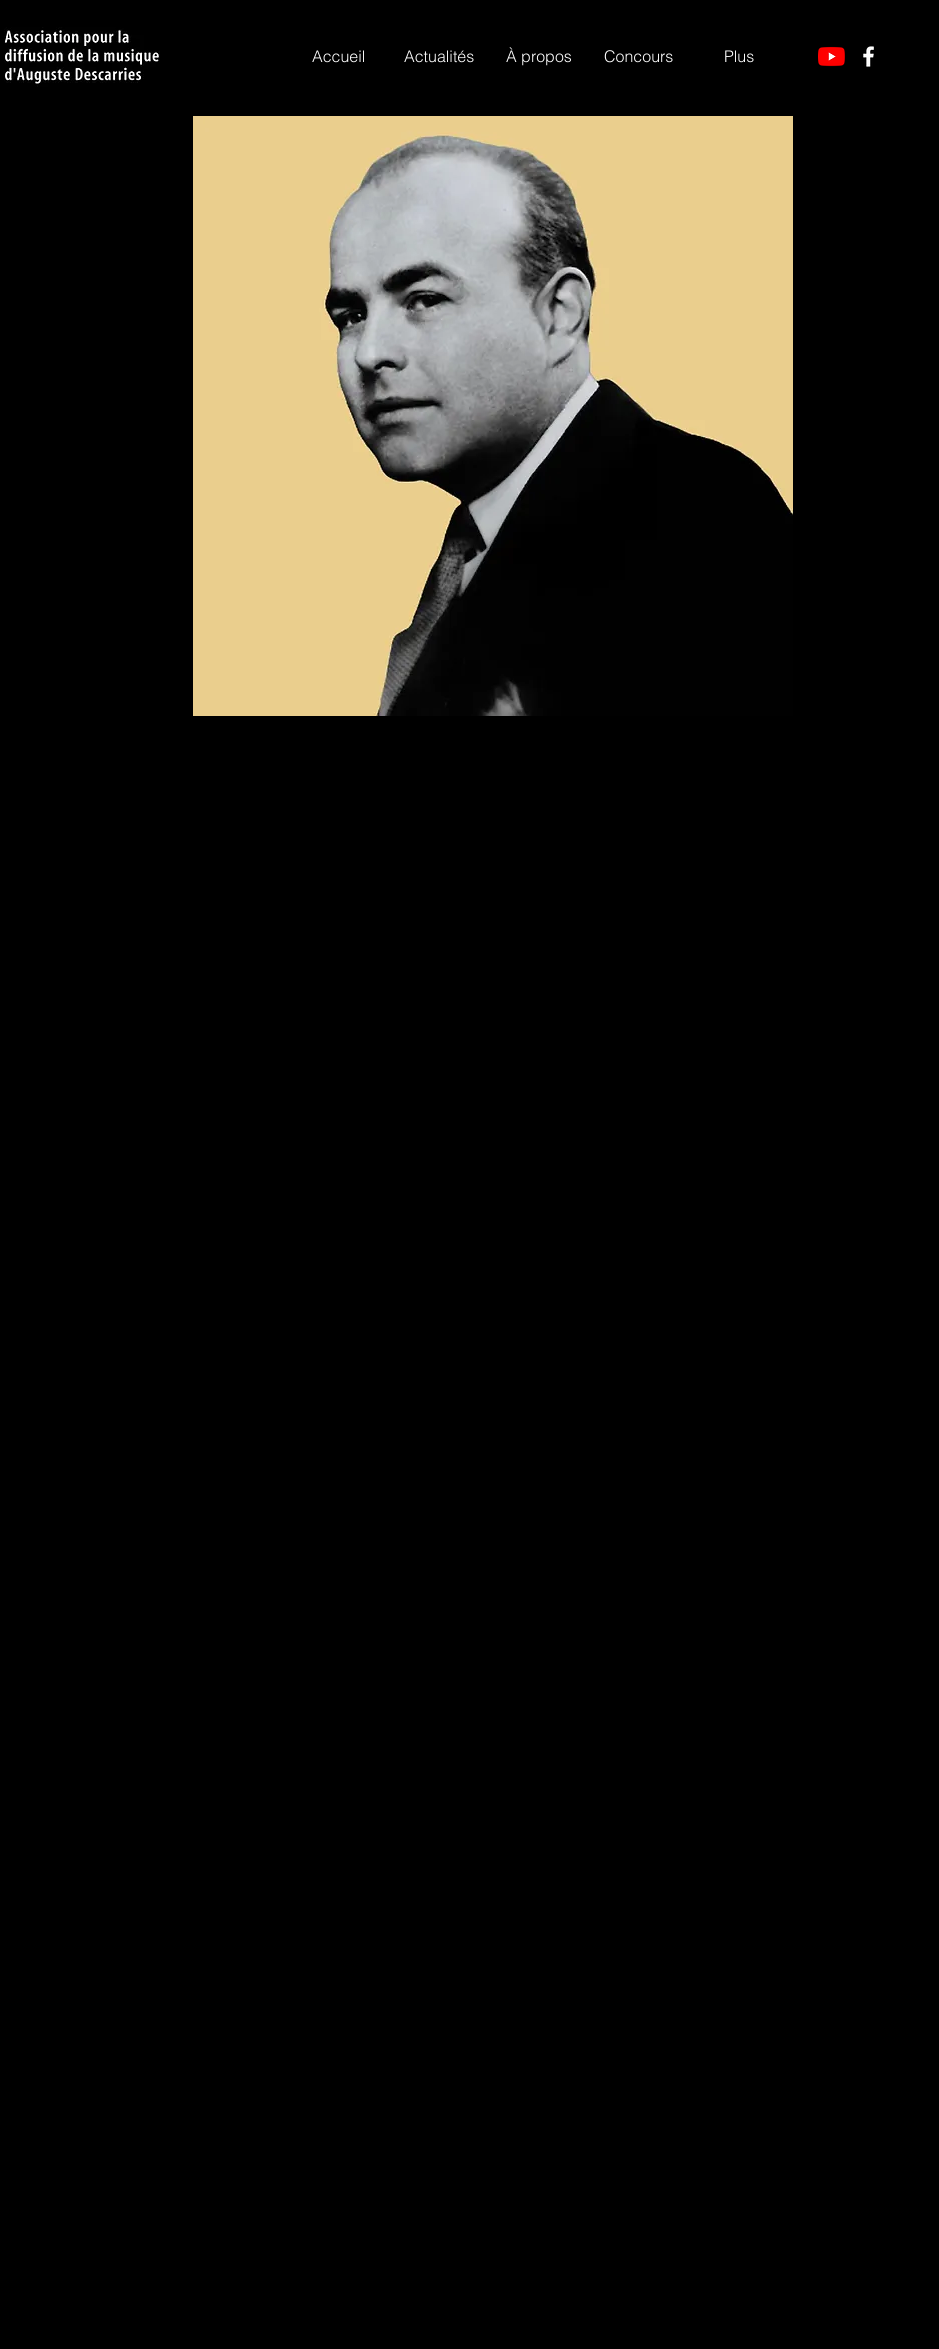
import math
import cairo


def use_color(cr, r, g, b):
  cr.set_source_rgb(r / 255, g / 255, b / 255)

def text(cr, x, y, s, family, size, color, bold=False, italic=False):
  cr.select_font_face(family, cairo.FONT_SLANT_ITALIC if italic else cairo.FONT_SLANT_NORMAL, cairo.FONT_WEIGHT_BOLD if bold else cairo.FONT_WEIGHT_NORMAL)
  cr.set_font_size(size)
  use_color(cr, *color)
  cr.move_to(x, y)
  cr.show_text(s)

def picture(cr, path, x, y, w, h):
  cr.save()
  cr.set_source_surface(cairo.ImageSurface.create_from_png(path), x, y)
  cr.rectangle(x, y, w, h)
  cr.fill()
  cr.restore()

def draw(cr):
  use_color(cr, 0, 0, 0)
  cr.paint()
  picture(cr, "img_01.png", 4, 27, 156, 60)
  picture(cr, "img_02.png", 818, 46, 27, 21)
  picture(cr, "img_03.png", 863, 46, 11, 21)
  picture(cr, "img_04.png", 193, 116, 600, 600)
  text(cr, 312, 62, "Accueil", "helvetica Light", 16, (255, 255, 255))
  text(cr, 404, 62, "Actualités", "helvetica Light", 16, (255, 255, 255))
  text(cr, 506, 62, "À propos", "helvetica Light", 16, (255, 255, 255))
  text(cr, 604, 62, "Concours", "helvetica Light", 16, (255, 255, 255))
  text(cr, 724, 62, "Plus", "helvetica Light", 16, (255, 255, 255))


surface = cairo.ImageSurface(cairo.FORMAT_RGB24, 939, 2349)
cr = cairo.Context(surface)
options = cairo.FontOptions()
options.set_hint_metrics(cairo.HINT_METRICS_OFF)
options.set_hint_style(cairo.HINT_STYLE_NONE)
cr.set_font_options(options)
cr.set_miter_limit(4)
draw(cr)
surface.write_to_png("out.png")
